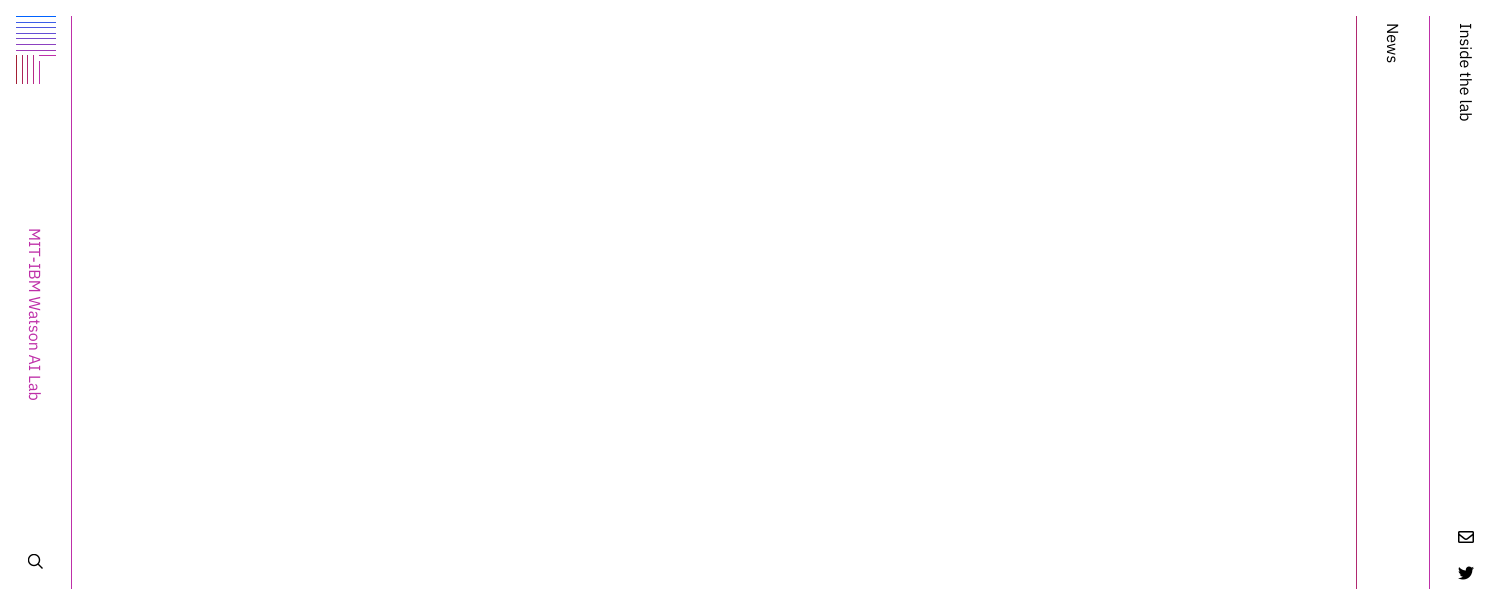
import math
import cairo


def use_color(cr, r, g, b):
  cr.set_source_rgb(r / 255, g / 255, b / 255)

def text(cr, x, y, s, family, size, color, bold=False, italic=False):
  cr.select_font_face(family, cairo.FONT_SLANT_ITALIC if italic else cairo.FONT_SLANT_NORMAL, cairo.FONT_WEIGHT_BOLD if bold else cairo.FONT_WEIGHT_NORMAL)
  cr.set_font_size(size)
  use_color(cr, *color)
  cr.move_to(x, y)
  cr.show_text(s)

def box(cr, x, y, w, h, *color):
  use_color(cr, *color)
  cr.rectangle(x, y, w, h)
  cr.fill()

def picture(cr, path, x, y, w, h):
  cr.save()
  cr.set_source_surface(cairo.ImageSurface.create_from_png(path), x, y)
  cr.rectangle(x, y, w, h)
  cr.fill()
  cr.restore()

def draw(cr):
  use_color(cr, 255, 255, 255)
  cr.paint()
  box(cr, 39, 55, 17, 1, 190, 47, 168)
  box(cr, 16, 50, 40, 1, 160, 58, 183)
  box(cr, 16, 44, 40, 1, 140, 65, 192)
  box(cr, 16, 38, 40, 1, 119, 72, 202)
  box(cr, 16, 33, 40, 1, 98, 79, 213)
  box(cr, 16, 27, 40, 1, 79, 86, 222)
  box(cr, 16, 22, 40, 1, 59, 93, 232)
  box(cr, 16, 16, 40, 1, 0, 98, 255)
  box(cr, 39, 61, 1, 23, 190, 47, 168)
  box(cr, 33, 55, 1, 29, 182, 43, 134)
  box(cr, 27, 55, 1, 29, 177, 40, 112)
  box(cr, 22, 55, 1, 29, 171, 36, 87)
  box(cr, 16, 55, 1, 29, 163, 31, 52)
  box(cr, 1356, 16, 1, 573, 177, 40, 112)
  box(cr, 1429, 16, 1, 573, 190, 47, 168)
  box(cr, 71, 16, 1, 573, 190, 47, 168)
  cr.save()
  cr.rectangle(28, 554, 16, 16)
  cr.clip()
  cr.arc(34, 560, 5.5, 0, 2 * math.pi)
  use_color(cr, 0, 0, 0)
  cr.set_line_width(1.4)
  cr.stroke()
  cr.restore()
  cr.new_path()
  cr.move_to(38, 564)
  cr.line_to(42.5, 568.5)
  use_color(cr, 0, 0, 0)
  cr.set_line_width(1.4)
  cr.stroke()
  picture(cr, "img_01.png", 1458, 531, 16, 12)
  picture(cr, "img_02.png", 1458, 566, 16, 14)
  cr.save()
  cr.translate(1387, 23)
  cr.rotate(90 * math.pi / 180)
  text(cr, 0, 0, "News", "IBM Plex Sans", 16, (0, 0, 0))
  cr.restore()
  cr.save()
  cr.translate(1460, 23)
  cr.rotate(90 * math.pi / 180)
  text(cr, 0, 0, "Inside the lab", "IBM Plex Sans", 16, (0, 0, 0))
  cr.restore()
  cr.save()
  cr.translate(29, 228)
  cr.rotate(90 * math.pi / 180)
  text(cr, 0, 0, "MIT-IBM Watson AI Lab", "IBM Plex Sans", 16, (190, 47, 168))
  cr.restore()


surface = cairo.ImageSurface(cairo.FORMAT_RGB24, 1502, 605)
cr = cairo.Context(surface)
options = cairo.FontOptions()
options.set_hint_metrics(cairo.HINT_METRICS_OFF)
options.set_hint_style(cairo.HINT_STYLE_NONE)
cr.set_font_options(options)
cr.set_miter_limit(4)
draw(cr)
surface.write_to_png("out.png")
